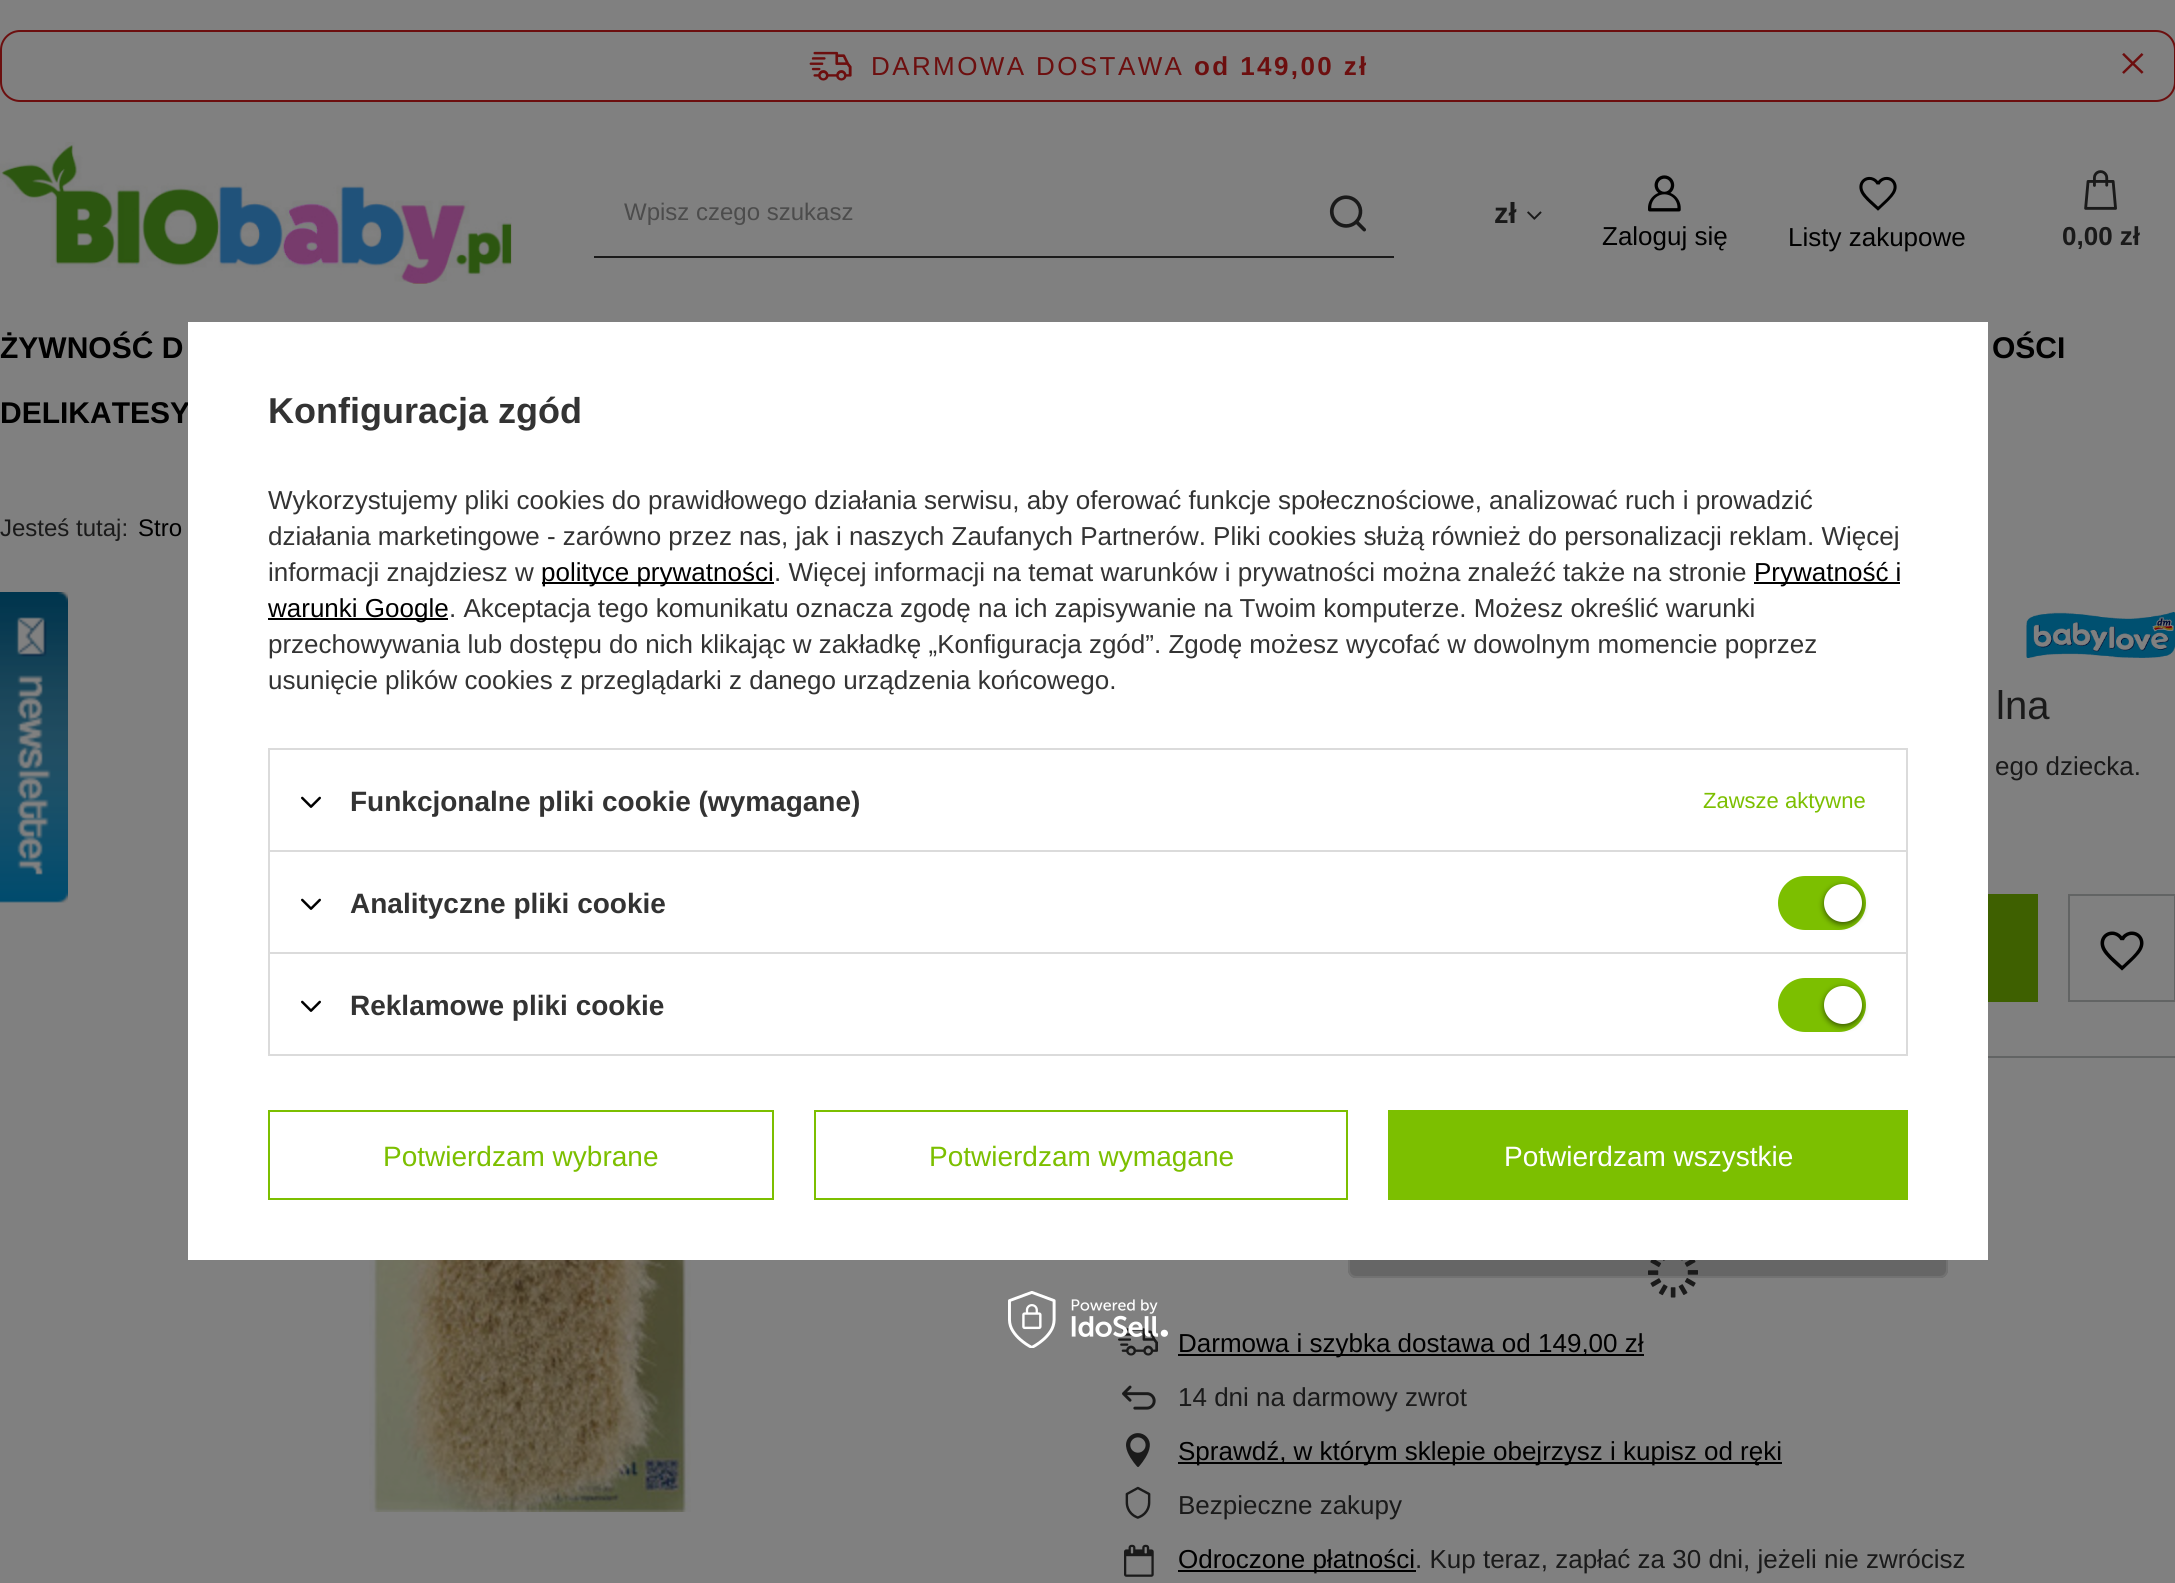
import math
import cairo


def use_color(cr, r, g, b):
  cr.set_source_rgb(r / 255, g / 255, b / 255)

def text(cr, x, y, s, family, size, color, bold=False, italic=False):
  cr.select_font_face(family, cairo.FONT_SLANT_ITALIC if italic else cairo.FONT_SLANT_NORMAL, cairo.FONT_WEIGHT_BOLD if bold else cairo.FONT_WEIGHT_NORMAL)
  cr.set_font_size(size)
  use_color(cr, *color)
  cr.move_to(x, y)
  cr.show_text(s)

def spaced_text(cr, x, y, s, letter, word):
  cr.move_to(x, y)
  for ch in s:
    cr.show_text(ch)
    cr.rel_move_to(letter + word * (ch == ' '), 0)

def box(cr, x, y, w, h, *color):
  use_color(cr, *color)
  cr.rectangle(x, y, w, h)
  cr.fill()

def round_rect(cr, x, y, w, h, r):
  cr.new_sub_path()
  for i, (u, v) in enumerate([(x + w - r, y + h - r), (x + r, y + h - r), (x + r, y + r), (x + w - r, y + r)]):
    cr.arc(u, v, r, i * math.pi / 2, (i + 1) * math.pi / 2)
  cr.close_path()

def shadow(cr, x, y, w, h, r, blur, alpha):
  cr.push_group_with_content(cairo.CONTENT_ALPHA)
  cr.set_operator(cairo.OPERATOR_SOURCE)
  for i in range(15, -16, -2):
    e = blur * i / 6
    if min(w, h) + 2 * e > 0:
      cr.set_source_rgba(0, 0, 0, alpha * math.erfc((i - 1) / 8.5) / 2)
      round_rect(cr, x - e, y - e, w + 2 * e, h + 2 * e, max(0, min(r + e + blur * .6, min(w, h) / 2 + e)))
      cr.fill()
  cr.mask(cr.pop_group())

def picture(cr, path, x, y, w, h):
  cr.save()
  cr.set_source_surface(cairo.ImageSurface.create_from_png(path), x, y)
  cr.rectangle(x, y, w, h)
  cr.fill()
  cr.restore()

def draw(cr):
  use_color(cr, 128, 128, 128)
  cr.paint()
  round_rect(cr, 1, 31, 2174, 70, 19)
  use_color(cr, 108, 15, 15)
  cr.stroke()
  picture(cr, "img_01.png", 809, 51, 43, 30)
  picture(cr, "img_02.png", 2122, 53, 22, 21)
  picture(cr, "img_03.png", 0, 142, 512, 142)
  box(cr, 594, 256, 800, 2, 26, 26, 26)
  picture(cr, "img_04.png", 1329, 195, 37, 37)
  picture(cr, "img_05.png", 1527, 211, 15, 9)
  picture(cr, "img_06.png", 1648, 175, 33, 37)
  picture(cr, "img_07.png", 1859, 176, 38, 35)
  picture(cr, "img_08.png", 2084, 170, 33, 40)
  picture(cr, "img_09.png", 2026, 612, 149, 46)
  picture(cr, "img_10.png", 369, 1260, 322, 252)
  box(cr, 1988, 894, 50, 108, 62, 96, 0)
  cr.rectangle(2069, 895, 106, 106)
  use_color(cr, 98, 100, 100)
  cr.stroke()
  picture(cr, "img_11.png", 2100, 931, 44, 40)
  box(cr, 1988, 1056, 187, 2, 98, 100, 100)
  picture(cr, "img_12.png", 1348, 1260, 600, 18)
  picture(cr, "img_13.png", 1648, 1260, 50, 38)
  picture(cr, "img_14.png", 1118, 1328, 40, 28)
  box(cr, 1178, 1354, 316, 2, 0, 0, 0)
  box(cr, 1494, 1354, 150, 2, 0, 0, 0)
  picture(cr, "img_15.png", 1122, 1385, 34, 25)
  picture(cr, "img_16.png", 1126, 1433, 24, 34)
  box(cr, 1178, 1462, 604, 2, 0, 0, 0)
  picture(cr, "img_17.png", 1125, 1486, 26, 33)
  picture(cr, "img_18.png", 1124, 1544, 30, 33)
  box(cr, 1178, 1570, 238, 2, 0, 0, 0)
  picture(cr, "img_19.png", 0, 592, 68, 311)
  picture(cr, "img_21.png", 1008, 1291, 160, 57)
  cr.select_font_face("Liberation Sans")
  cr.set_font_size(26)
  use_color(cr, 108, 15, 15)
  spaced_text(cr, 871, 75, "DARMOWA DOSTAWA", 2.4, 0)
  cr.select_font_face("Liberation Sans", cairo.FONT_SLANT_NORMAL, cairo.FONT_WEIGHT_BOLD)
  spaced_text(cr, 1194, 75, "od 149,00 zł", 2.4, 0)
  text(cr, 624, 220, "Wpisz czego szukasz", "Liberation Sans", 24, (76, 76, 76))
  text(cr, 1494, 223, "zł", "Liberation Sans", 29, (26, 26, 26), bold=True)
  text(cr, 1602, 245, "Zaloguj się", "Liberation Sans", 26, (0, 0, 0))
  text(cr, 1788, 246, "Listy zakupowe", "Liberation Sans", 26, (0, 0, 0))
  text(cr, 2062, 245, "0,00 zł", "Liberation Sans", 26, (26, 26, 26), bold=True)
  text(cr, 0, 358, "ŻYWNOŚĆ D", "Liberation Sans", 30, (0, 0, 0), bold=True)
  text(cr, 1992, 358, "OŚCI", "Liberation Sans", 30, (0, 0, 0), bold=True)
  text(cr, 0, 423, "DELIKATESY", "Liberation Sans", 30, (0, 0, 0), bold=True)
  text(cr, 0, 536, "Jesteś tutaj:", "Liberation Sans", 24, (26, 26, 26))
  text(cr, 138, 536, "Stro", "Liberation Sans", 24, (0, 0, 0))
  text(cr, 1996, 719, "lna", "Liberation Sans", 40, (26, 26, 26))
  text(cr, 1995, 775, "ego dziecka.", "Liberation Sans", 26, (26, 26, 26))
  text(cr, 1178, 1352, "Darmowa i szybka dostawa od", "Liberation Sans", 26, (0, 0, 0))
  text(cr, 1538, 1352, "149,00 zł", "Liberation Sans", 26, (0, 0, 0))
  text(cr, 1178, 1406, "14 dni na darmowy zwrot", "Liberation Sans", 26, (26, 26, 26))
  text(cr, 1178, 1460, "Sprawdź, w którym sklepie obejrzysz i kupisz od ręki", "Liberation Sans", 26, (0, 0, 0))
  text(cr, 1178, 1514, "Bezpieczne zakupy", "Liberation Sans", 26, (26, 26, 26))
  text(cr, 1178, 1568, "Odroczone płatności", "Liberation Sans", 26, (0, 0, 0))
  text(cr, 1415, 1568, ". Kup teraz, zapłać za 30 dni, jeżeli nie zwrócisz", "Liberation Sans", 26, (26, 26, 26))
  box(cr, 188, 322, 1800, 938, 255, 255, 255)
  text(cr, 268, 423, "Konfiguracja zgód", "Liberation Sans", 36, (51, 51, 51), bold=True)
  text(cr, 268, 509, "Wykorzystujemy pliki cookies do prawidłowego działania serwisu, aby oferować funkcje społecznościowe, analizować ruch i prowadzić", "Liberation Sans", 26, (51, 51, 51))
  text(cr, 268, 545, "działania marketingowe - zarówno przez nas, jak i naszych Zaufanych Partnerów. Pliki cookies służą również do personalizacji reklam. Więcej", "Liberation Sans", 26, (51, 51, 51))
  text(cr, 268, 581, "informacji znajdziesz w", "Liberation Sans", 26, (51, 51, 51))
  box(cr, 542, 582, 232, 2, 0, 0, 0)
  text(cr, 541, 581, "polityce prywatności", "Liberation Sans", 26, (0, 0, 0))
  text(cr, 774, 581, ". Więcej informacji na temat warunków i prywatności można znaleźć także na stronie", "Liberation Sans", 26, (51, 51, 51))
  box(cr, 1754, 582, 146, 2, 0, 0, 0)
  text(cr, 1754, 581, "Prywatność i", "Liberation Sans", 26, (0, 0, 0))
  box(cr, 268, 618, 180, 2, 0, 0, 0)
  text(cr, 268, 617, "warunki Google", "Liberation Sans", 26, (0, 0, 0))
  text(cr, 449, 617, ". Akceptacja tego komunikatu oznacza zgodę na ich zapisywanie na Twoim komputerze. Możesz określić warunki", "Liberation Sans", 26, (51, 51, 51))
  text(cr, 268, 653, "przechowywania lub dostępu do nich klikając w zakładkę „Konfiguracja zgód”. Zgodę możesz wycofać w dowolnym momencie poprzez", "Liberation Sans", 26, (51, 51, 51))
  text(cr, 268, 689, "usunięcie plików cookies z przeglądarki z danego urządzenia końcowego.", "Liberation Sans", 26, (51, 51, 51))
  box(cr, 268, 748, 1640, 2, 219, 219, 219)
  box(cr, 1906, 748, 2, 102, 219, 219, 219)
  box(cr, 268, 748, 2, 102, 219, 219, 219)
  picture(cr, "img_20.png", 301, 796, 20, 12)
  text(cr, 350, 811, "Funkcjonalne pliki cookie (wymagane)", "Liberation Sans", 28, (51, 51, 51), bold=True)
  text(cr, 1703, 808, "Zawsze aktywne", "Liberation Sans", 22, (124, 191, 0))
  box(cr, 268, 850, 1640, 2, 219, 219, 219)
  box(cr, 1906, 850, 2, 102, 219, 219, 219)
  box(cr, 268, 850, 2, 102, 219, 219, 219)
  picture(cr, "img_20.png", 301, 898, 20, 12)
  text(cr, 350, 913, "Analityczne pliki cookie", "Liberation Sans", 28, (51, 51, 51), bold=True)
  use_color(cr, 124, 191, 0)
  round_rect(cr, 1778, 876, 88, 54, 27)
  cr.fill()
  use_color(cr, 0, 0, 0)
  shadow(cr, 1824, 886, 38, 38, 19, 3, 0.56)
  use_color(cr, 255, 255, 255)
  cr.arc(1843, 903, 19, 0, 2 * math.pi)
  cr.fill()
  cr.rectangle(269, 953, 1638, 102)
  use_color(cr, 219, 219, 219)
  cr.stroke()
  picture(cr, "img_20.png", 301, 1000, 20, 12)
  text(cr, 350, 1015, "Reklamowe pliki cookie", "Liberation Sans", 28, (51, 51, 51), bold=True)
  use_color(cr, 124, 191, 0)
  round_rect(cr, 1778, 978, 88, 54, 27)
  cr.fill()
  use_color(cr, 0, 0, 0)
  shadow(cr, 1824, 988, 38, 38, 19, 3, 0.56)
  use_color(cr, 255, 255, 255)
  cr.arc(1843, 1005, 19, 0, 2 * math.pi)
  cr.fill()
  cr.rectangle(269, 1111, 504, 88)
  use_color(cr, 124, 191, 0)
  cr.stroke()
  text(cr, 383, 1166, "Potwierdzam wybrane", "Liberation Sans", 28, (124, 191, 0))
  cr.rectangle(815, 1111, 532, 88)
  cr.stroke()
  text(cr, 929, 1166, "Potwierdzam wymagane", "Liberation Sans", 28, (124, 191, 0))
  box(cr, 1388, 1110, 520, 90, 124, 191, 0)
  text(cr, 1504, 1166, "Potwierdzam wszystkie", "Liberation Sans", 28, (255, 255, 255))


surface = cairo.ImageSurface(cairo.FORMAT_RGB24, 2175, 1583)
cr = cairo.Context(surface)
options = cairo.FontOptions()
options.set_hint_metrics(cairo.HINT_METRICS_OFF)
options.set_hint_style(cairo.HINT_STYLE_NONE)
cr.set_font_options(options)
cr.set_miter_limit(4)
draw(cr)
surface.write_to_png("out.png")
